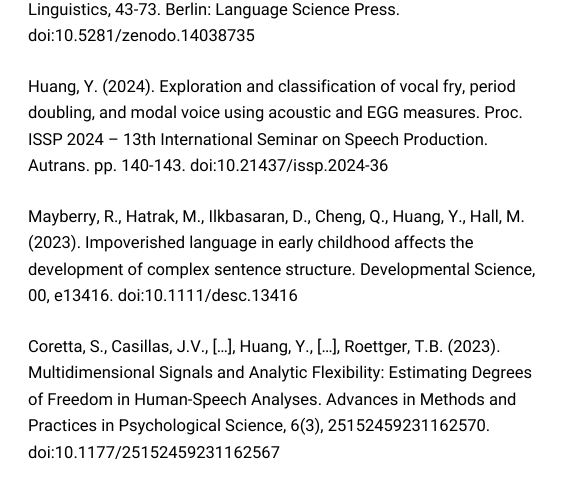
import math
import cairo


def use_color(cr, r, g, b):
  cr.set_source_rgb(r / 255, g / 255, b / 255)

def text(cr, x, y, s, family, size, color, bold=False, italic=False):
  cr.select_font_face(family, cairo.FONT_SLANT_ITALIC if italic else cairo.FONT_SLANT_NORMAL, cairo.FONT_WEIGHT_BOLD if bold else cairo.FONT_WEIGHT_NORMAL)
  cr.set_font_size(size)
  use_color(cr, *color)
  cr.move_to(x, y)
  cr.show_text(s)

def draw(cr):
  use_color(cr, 255, 255, 255)
  cr.paint()
  text(cr, 28, 15, "Linguistics, 43-73. Berlin: Language Science Press.", "Roboto", 16.55, (0, 0, 0))
  text(cr, 28, 41, "doi:10.5281/zenodo.14038735", "Roboto", 16.55, (0, 0, 0))
  text(cr, 28, 92, "Huang, Y. (2024). Exploration and classification of vocal fry, period", "Roboto", 16.55, (0, 0, 0))
  text(cr, 28, 118, "doubling, and modal voice using acoustic and EGG measures. Proc.", "Roboto", 16.55, (0, 0, 0))
  text(cr, 28, 145, "ISSP 2024 – 13th International Seminar on Speech Production.", "Roboto", 16.55, (0, 0, 0))
  text(cr, 28, 171, "Autrans. pp. 140-143. doi:10.21437/issp.2024-36", "Roboto", 16.55, (0, 0, 0))
  text(cr, 28, 222, "Mayberry, R., Hatrak, M., Ilkbasaran, D., Cheng, Q., Huang, Y., Hall, M.", "Roboto", 16.55, (0, 0, 0))
  text(cr, 28, 248, "(2023). Impoverished language in early childhood affects the", "Roboto", 16.55, (0, 0, 0))
  text(cr, 28, 275, "development of complex sentence structure. Developmental Science,", "Roboto", 16.55, (0, 0, 0))
  text(cr, 28, 301, "00, e13416. doi:10.1111/desc.13416", "Roboto", 16.55, (0, 0, 0))
  text(cr, 28, 352, "Coretta, S., Casillas, J.V., […], Huang, Y., […], Roettger, T.B. (2023).", "Roboto", 16.55, (0, 0, 0))
  text(cr, 28, 378, "Multidimensional Signals and Analytic Flexibility: Estimating Degrees", "Roboto", 16.55, (0, 0, 0))
  text(cr, 28, 405, "of Freedom in Human-Speech Analyses. Advances in Methods and", "Roboto", 16.55, (0, 0, 0))
  text(cr, 28, 431, "Practices in Psychological Science, 6(3), 25152459231162570.", "Roboto", 16.55, (0, 0, 0))
  text(cr, 28, 458, "doi:10.1177/25152459231162567", "Roboto", 16.55, (0, 0, 0))


surface = cairo.ImageSurface(cairo.FORMAT_RGB24, 567, 481)
cr = cairo.Context(surface)
options = cairo.FontOptions()
options.set_hint_metrics(cairo.HINT_METRICS_OFF)
options.set_hint_style(cairo.HINT_STYLE_NONE)
cr.set_font_options(options)
cr.set_miter_limit(4)
draw(cr)
surface.write_to_png("out.png")
